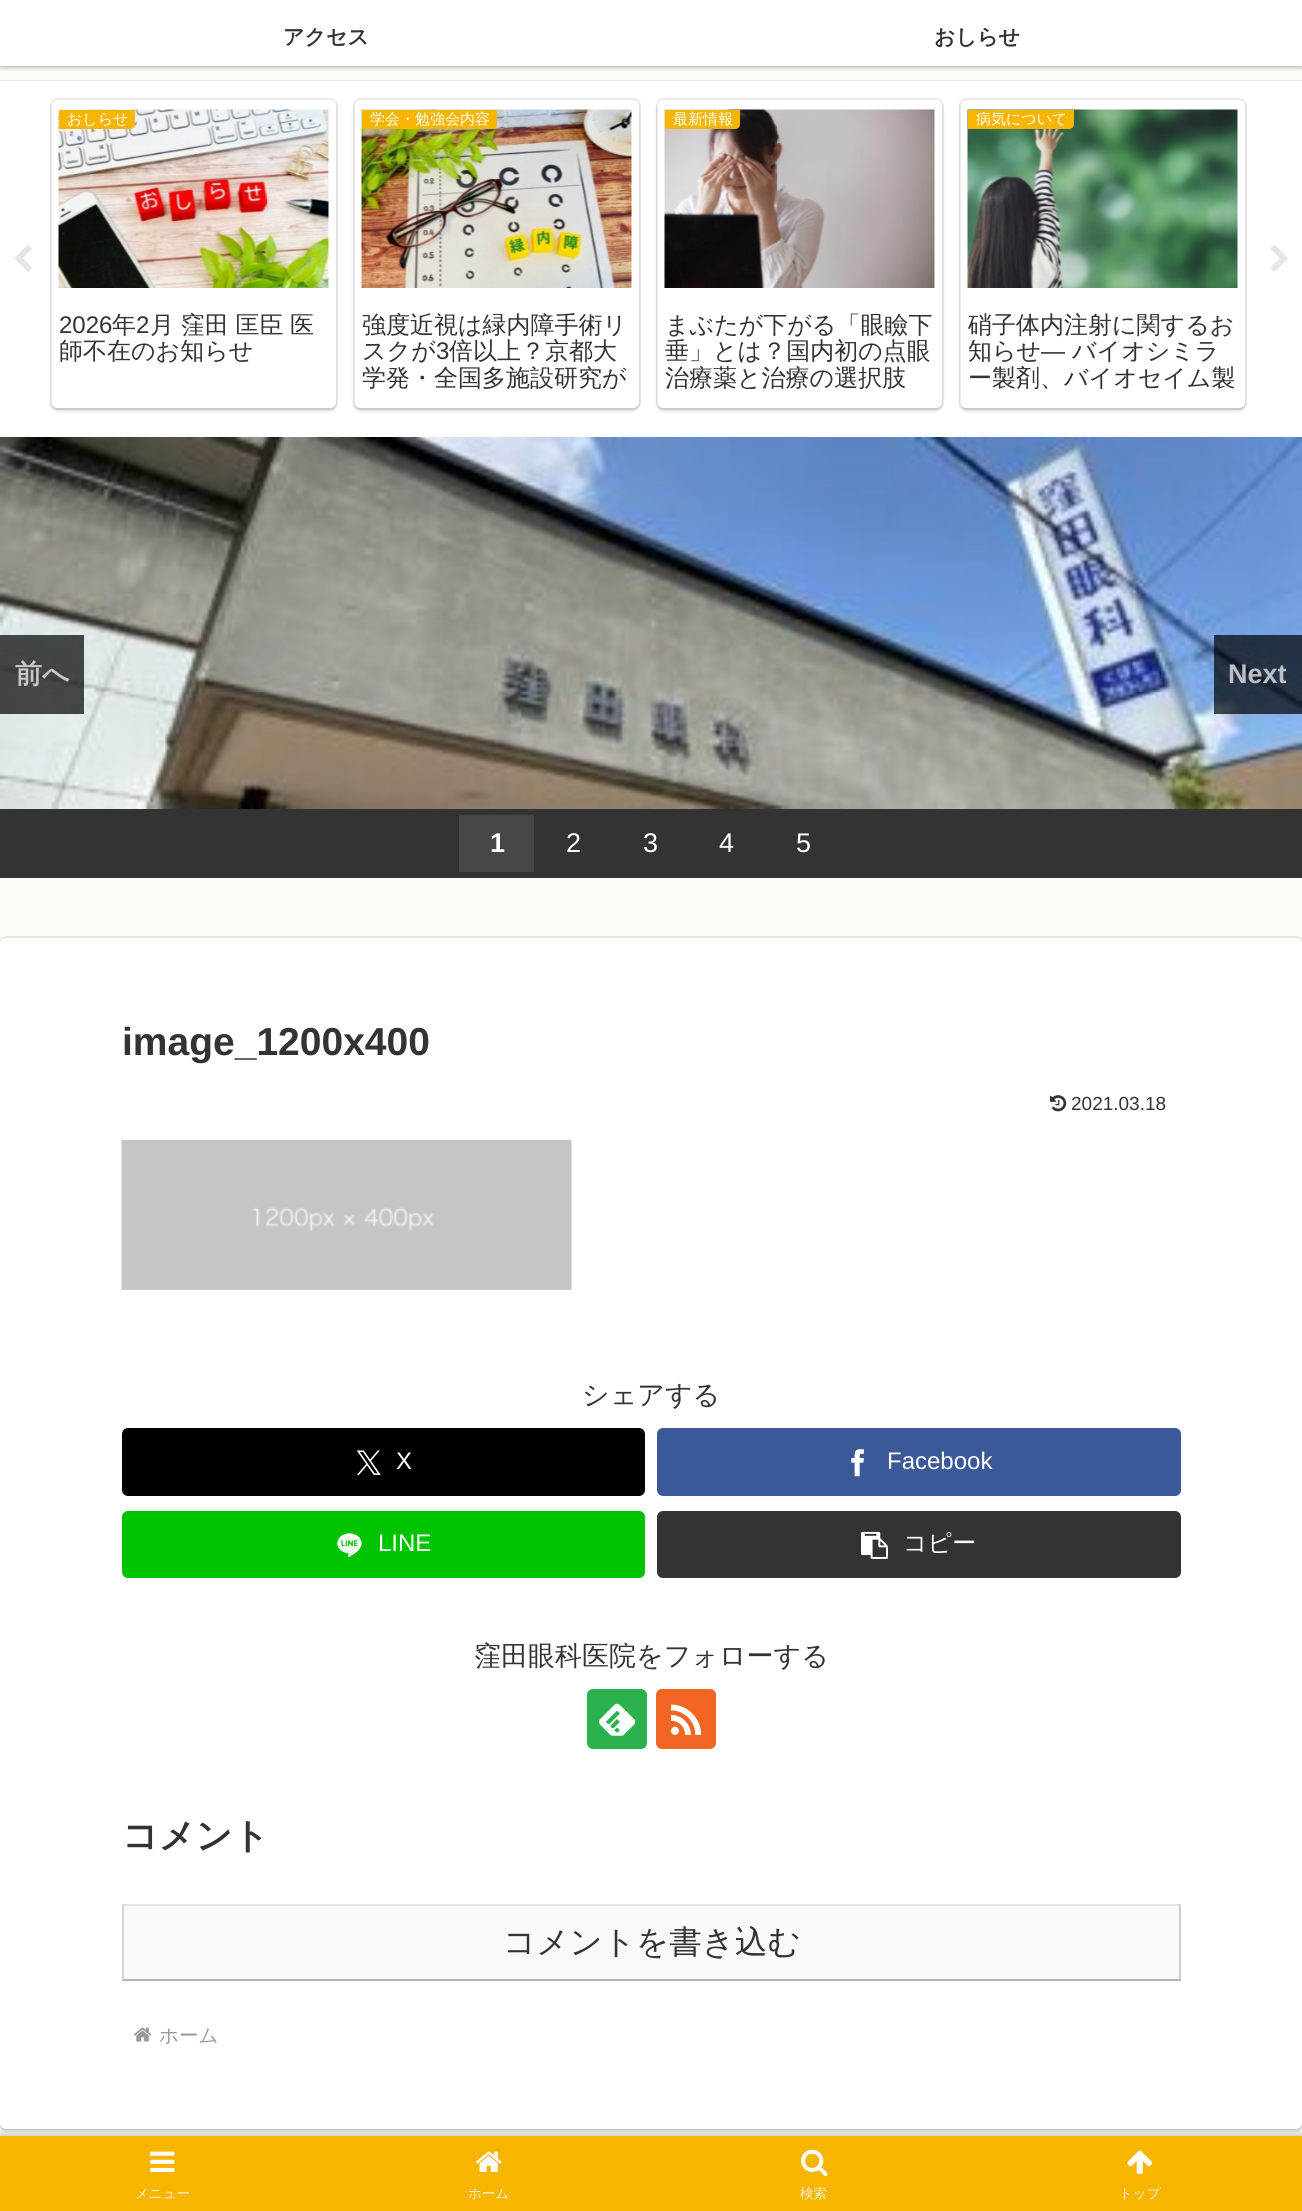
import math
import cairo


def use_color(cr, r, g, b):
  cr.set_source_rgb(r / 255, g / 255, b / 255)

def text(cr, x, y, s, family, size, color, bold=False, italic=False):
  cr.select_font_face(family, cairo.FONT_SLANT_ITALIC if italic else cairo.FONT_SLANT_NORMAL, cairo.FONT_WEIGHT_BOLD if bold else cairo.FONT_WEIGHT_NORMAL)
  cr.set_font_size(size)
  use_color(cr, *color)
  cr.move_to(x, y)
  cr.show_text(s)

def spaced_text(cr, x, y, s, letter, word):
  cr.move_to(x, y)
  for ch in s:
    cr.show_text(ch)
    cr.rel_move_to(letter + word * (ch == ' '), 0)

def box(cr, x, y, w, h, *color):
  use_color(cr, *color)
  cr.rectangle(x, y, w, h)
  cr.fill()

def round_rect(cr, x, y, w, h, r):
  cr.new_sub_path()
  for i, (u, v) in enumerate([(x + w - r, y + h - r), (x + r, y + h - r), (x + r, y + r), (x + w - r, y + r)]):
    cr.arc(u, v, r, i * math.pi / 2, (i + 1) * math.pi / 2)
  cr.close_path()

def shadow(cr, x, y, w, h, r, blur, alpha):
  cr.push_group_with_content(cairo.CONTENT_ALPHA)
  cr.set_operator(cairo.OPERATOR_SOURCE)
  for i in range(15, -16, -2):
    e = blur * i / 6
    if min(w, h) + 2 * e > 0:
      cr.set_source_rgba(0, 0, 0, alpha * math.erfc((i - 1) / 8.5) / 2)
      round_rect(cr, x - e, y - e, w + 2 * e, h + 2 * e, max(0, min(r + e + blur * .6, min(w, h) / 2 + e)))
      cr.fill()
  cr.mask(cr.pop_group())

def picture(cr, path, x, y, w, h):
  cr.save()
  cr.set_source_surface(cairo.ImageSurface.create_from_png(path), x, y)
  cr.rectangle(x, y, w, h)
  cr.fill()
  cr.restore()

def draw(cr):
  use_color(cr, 251, 250, 245)
  cr.paint()
  box(cr, 0, 0, 1302, 66, 255, 255, 255)
  cr.save()
  cr.rectangle(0, 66, 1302, 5)
  cr.clip()
  use_color(cr, 0, 0, 0)
  shadow(cr, 0, -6, 1302, 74, 0, 2, 0.25)
  cr.restore()
  cr.rectangle(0, 81, 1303, 356)
  use_color(cr, 231, 230, 225)
  cr.stroke()
  box(cr, 0, 81, 1302, 356, 255, 255, 255)
  picture(cr, "img_01.png", 14, 245, 18, 27)
  round_rect(cr, 51, 99, 286, 310, 7)
  use_color(cr, 235, 235, 235)
  cr.stroke()
  cr.save()
  cr.set_fill_rule(cairo.FILL_RULE_EVEN_ODD)
  cr.new_path()
  cr.move_to(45, 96)
  cr.line_to(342, 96)
  cr.line_to(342, 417)
  cr.line_to(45, 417)
  cr.close_path()
  cr.move_to(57, 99)
  cr.line_to(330, 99)
  cr.curve_to(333.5, 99, 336, 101.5, 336, 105)
  cr.line_to(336, 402)
  cr.curve_to(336, 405.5, 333.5, 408, 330, 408)
  cr.line_to(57, 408)
  cr.curve_to(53.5, 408, 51, 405.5, 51, 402)
  cr.line_to(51, 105)
  cr.curve_to(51, 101.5, 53.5, 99, 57, 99)
  cr.close_path()
  cr.clip()
  use_color(cr, 0, 0, 0)
  shadow(cr, 51, 102, 285, 309, 6, 1.5, 0.16)
  cr.restore()
  picture(cr, "img_02.png", 58, 109, 271, 179)
  use_color(cr, 248, 181, 0)
  cr.new_path()
  cr.move_to(59, 110)
  cr.line_to(135, 110)
  cr.line_to(135, 124)
  cr.curve_to(135, 127, 133, 129, 130, 129)
  cr.line_to(59, 129)
  cr.close_path()
  cr.fill()
  round_rect(cr, 354, 99, 286, 310, 7)
  use_color(cr, 235, 235, 235)
  cr.stroke()
  cr.save()
  cr.set_fill_rule(cairo.FILL_RULE_EVEN_ODD)
  cr.new_path()
  cr.move_to(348, 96)
  cr.line_to(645, 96)
  cr.line_to(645, 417)
  cr.line_to(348, 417)
  cr.close_path()
  cr.move_to(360, 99)
  cr.line_to(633, 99)
  cr.curve_to(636.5, 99, 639, 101.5, 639, 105)
  cr.line_to(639, 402)
  cr.curve_to(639, 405.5, 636.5, 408, 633, 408)
  cr.line_to(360, 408)
  cr.curve_to(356.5, 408, 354, 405.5, 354, 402)
  cr.line_to(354, 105)
  cr.curve_to(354, 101.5, 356.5, 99, 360, 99)
  cr.close_path()
  cr.clip()
  use_color(cr, 0, 0, 0)
  shadow(cr, 354, 102, 285, 309, 6, 1.5, 0.16)
  cr.restore()
  picture(cr, "img_03.png", 361, 109, 271, 179)
  use_color(cr, 248, 181, 0)
  cr.new_path()
  cr.move_to(362, 110)
  cr.line_to(497, 110)
  cr.line_to(497, 124)
  cr.curve_to(497, 127, 495, 129, 492, 129)
  cr.line_to(362, 129)
  cr.close_path()
  cr.fill()
  round_rect(cr, 657, 99, 286, 310, 7)
  use_color(cr, 235, 235, 235)
  cr.stroke()
  cr.save()
  cr.set_fill_rule(cairo.FILL_RULE_EVEN_ODD)
  cr.new_path()
  cr.move_to(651, 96)
  cr.line_to(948, 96)
  cr.line_to(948, 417)
  cr.line_to(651, 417)
  cr.close_path()
  cr.move_to(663, 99)
  cr.line_to(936, 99)
  cr.curve_to(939.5, 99, 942, 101.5, 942, 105)
  cr.line_to(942, 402)
  cr.curve_to(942, 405.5, 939.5, 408, 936, 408)
  cr.line_to(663, 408)
  cr.curve_to(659.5, 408, 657, 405.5, 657, 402)
  cr.line_to(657, 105)
  cr.curve_to(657, 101.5, 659.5, 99, 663, 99)
  cr.close_path()
  cr.clip()
  use_color(cr, 0, 0, 0)
  shadow(cr, 657, 102, 285, 309, 6, 1.5, 0.16)
  cr.restore()
  picture(cr, "img_04.png", 664, 109, 271, 179)
  use_color(cr, 248, 181, 0)
  cr.new_path()
  cr.move_to(665, 110)
  cr.line_to(740, 110)
  cr.line_to(740, 124)
  cr.curve_to(740, 127, 738, 129, 735, 129)
  cr.line_to(665, 129)
  cr.close_path()
  cr.fill()
  round_rect(cr, 960, 99, 286, 310, 7)
  use_color(cr, 235, 235, 235)
  cr.stroke()
  cr.save()
  cr.set_fill_rule(cairo.FILL_RULE_EVEN_ODD)
  cr.new_path()
  cr.move_to(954, 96)
  cr.line_to(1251, 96)
  cr.line_to(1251, 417)
  cr.line_to(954, 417)
  cr.close_path()
  cr.move_to(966, 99)
  cr.line_to(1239, 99)
  cr.curve_to(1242.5, 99, 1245, 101.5, 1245, 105)
  cr.line_to(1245, 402)
  cr.curve_to(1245, 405.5, 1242.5, 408, 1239, 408)
  cr.line_to(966, 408)
  cr.curve_to(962.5, 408, 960, 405.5, 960, 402)
  cr.line_to(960, 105)
  cr.curve_to(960, 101.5, 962.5, 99, 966, 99)
  cr.close_path()
  cr.clip()
  use_color(cr, 0, 0, 0)
  shadow(cr, 960, 102, 285, 309, 6, 1.5, 0.16)
  cr.restore()
  picture(cr, "img_05.png", 967, 109, 271, 179)
  use_color(cr, 248, 181, 0)
  cr.new_path()
  cr.move_to(968, 110)
  cr.line_to(1074, 110)
  cr.line_to(1074, 124)
  cr.curve_to(1074, 127, 1072, 129, 1069, 129)
  cr.line_to(968, 129)
  cr.close_path()
  cr.fill()
  picture(cr, "img_06.png", 1270, 244, 18, 28)
  picture(cr, "img_07.png", 0, 437, 1302, 372)
  cr.set_source_rgba(0, 0, 0, 0.7)
  cr.rectangle(0, 635, 84, 79)
  cr.fill()
  cr.rectangle(1214, 635, 88, 79)
  cr.fill()
  box(cr, 0, 809, 1302, 69, 51, 51, 51)
  box(cr, 459, 815, 75, 57, 71, 71, 71)
  round_rect(cr, 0, 937, 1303, 1192, 7)
  use_color(cr, 231, 230, 225)
  cr.stroke()
  use_color(cr, 0, 0, 0)
  shadow(cr, 0, 941, 1302, 1191, 6, 1.5, 0.16)
  use_color(cr, 255, 255, 255)
  round_rect(cr, 0, 938, 1302, 1191, 6)
  cr.fill()
  picture(cr, "img_08.png", 1050, 1095, 17, 17)
  picture(cr, "img_09.png", 121, 1140, 451, 150)
  use_color(cr, 0, 0, 0)
  round_rect(cr, 122, 1428, 523, 68, 6)
  cr.fill()
  picture(cr, "img_10.png", 356, 1450, 25, 25)
  use_color(cr, 59, 89, 152)
  round_rect(cr, 657, 1428, 524, 68, 6)
  cr.fill()
  picture(cr, "img_11.png", 851, 1449, 13, 28)
  use_color(cr, 0, 195, 0)
  round_rect(cr, 122, 1511, 523, 67, 6)
  cr.fill()
  picture(cr, "img_12.png", 337, 1533, 25, 25)
  use_color(cr, 51, 51, 51)
  round_rect(cr, 657, 1511, 524, 67, 6)
  cr.fill()
  picture(cr, "img_13.png", 861, 1531, 27, 28)
  use_color(cr, 43, 178, 76)
  round_rect(cr, 587, 1689, 60, 60, 6)
  cr.fill()
  picture(cr, "img_14.png", 599, 1703, 37, 33)
  use_color(cr, 242, 101, 34)
  round_rect(cr, 656, 1689, 60, 60, 6)
  cr.fill()
  picture(cr, "img_15.png", 670, 1704, 32, 31)
  box(cr, 124, 1906, 1055, 73, 249, 249, 249)
  box(cr, 122, 1904, 1059, 2, 227, 227, 227)
  box(cr, 1179, 1904, 2, 76, 206, 206, 206)
  box(cr, 122, 1979, 1059, 2, 180, 180, 180)
  box(cr, 122, 1904, 2, 76, 214, 214, 214)
  picture(cr, "img_16.png", 133, 2027, 19, 15)
  use_color(cr, 169, 169, 169)
  shadow(cr, 0, 2136, 1302, 75, 0, 4, 1)
  box(cr, 0, 2136, 1302, 75, 248, 181, 0)
  picture(cr, "img_17.png", 150, 2151, 25, 21)
  picture(cr, "img_18.png", 476, 2151, 26, 21)
  picture(cr, "img_19.png", 801, 2149, 27, 28)
  picture(cr, "img_20.png", 1127, 2150, 26, 25)
  text(cr, 283, 44, "アクセス", "WenQuanYi Zen Hei", 21, (51, 51, 51), bold=True)
  text(cr, 934, 44, "おしらせ", "WenQuanYi Zen Hei", 21, (51, 51, 51), bold=True)
  text(cr, 67, 124, "おしらせ", "WenQuanYi Zen Hei Medium", 15, (255, 255, 255))
  text(cr, 59, 333, "2026", "Liberation Sans", 24, (51, 51, 51))
  text(cr, 112, 333, "年", "WenQuanYi Zen Hei Medium", 24, (51, 51, 51))
  text(cr, 136, 333, "2", "Liberation Sans", 24, (51, 51, 51))
  cr.select_font_face("WenQuanYi Zen Hei Medium")
  spaced_text(cr, 150, 333, "月 窪田 匡臣 医", 0, -0.5)
  text(cr, 59, 359, "師不在のお知らせ", "WenQuanYi Zen Hei Medium", 24, (51, 51, 51))
  text(cr, 370, 124, "学会・勉強会内容", "WenQuanYi Zen Hei Medium", 15, (255, 255, 255))
  text(cr, 362, 333, "強度近視は緑内障手術リ", "WenQuanYi Zen Hei Medium", 24, (51, 51, 51))
  text(cr, 362, 359, "スクが", "WenQuanYi Zen Hei Medium", 24, (51, 51, 51))
  text(cr, 436, 359, "3", "Liberation Sans", 24, (51, 51, 51))
  text(cr, 449, 359, "倍以上？京都大", "WenQuanYi Zen Hei Medium", 24, (51, 51, 51))
  cr.save()
  cr.rectangle(362, 312, 270, 77)
  cr.clip()
  text(cr, 362, 386, "学発・全国多施設研究が", "WenQuanYi Zen Hei Medium", 24, (51, 51, 51))
  cr.restore()
  text(cr, 673, 124, "最新情報", "WenQuanYi Zen Hei Medium", 15, (255, 255, 255))
  text(cr, 665, 333, "まぶたが下がる「眼瞼下", "WenQuanYi Zen Hei Medium", 24, (51, 51, 51))
  text(cr, 665, 359, "垂」とは？国内初の点眼", "WenQuanYi Zen Hei Medium", 24, (51, 51, 51))
  cr.save()
  cr.rectangle(665, 312, 270, 77)
  cr.clip()
  text(cr, 665, 386, "治療薬と治療の選択肢", "WenQuanYi Zen Hei Medium", 24, (51, 51, 51))
  cr.restore()
  text(cr, 976, 124, "病気について", "WenQuanYi Zen Hei Medium", 15, (255, 255, 255))
  text(cr, 968, 333, "硝子体内注射に関するお", "WenQuanYi Zen Hei Medium", 24, (51, 51, 51))
  text(cr, 968, 359, "知らせ", "WenQuanYi Zen Hei Medium", 24, (51, 51, 51))
  text(cr, 1041, 359, "―", "Liberation Sans", 24, (51, 51, 51))
  text(cr, 1072, 359, "バイオシミラ", "WenQuanYi Zen Hei Medium", 24, (51, 51, 51))
  cr.save()
  cr.rectangle(968, 312, 270, 77)
  cr.clip()
  text(cr, 968, 386, "ー製剤、バイオセイム製", "WenQuanYi Zen Hei Medium", 24, (51, 51, 51))
  cr.restore()
  text(cr, 15, 683, "前へ", "WenQuanYi Zen Hei", 27, (198, 199, 199), bold=True)
  text(cr, 1228, 683, "Next", "Liberation Sans", 27, (188, 192, 197), bold=True)
  text(cr, 490, 852, "1", "Liberation Sans", 27, (255, 255, 255), bold=True)
  text(cr, 566, 852, "2", "Liberation Sans", 27, (255, 255, 255))
  text(cr, 643, 852, "3", "Liberation Sans", 27, (255, 255, 255))
  text(cr, 719, 852, "4", "Liberation Sans", 27, (255, 255, 255))
  text(cr, 796, 852, "5", "Liberation Sans", 27, (255, 255, 255))
  text(cr, 122, 1055, "image_1200x400", "Liberation Sans", 39, (51, 51, 51), bold=True)
  text(cr, 1071, 1110, "2021.03.18", "Liberation Sans", 19, (51, 51, 51))
  text(cr, 582, 1404, "シェアする", "WenQuanYi Zen Hei Medium", 27, (51, 51, 51))
  text(cr, 396, 1469, "X", "Liberation Sans", 24, (255, 255, 255))
  text(cr, 887, 1469, "Facebook", "Liberation Sans", 24, (255, 255, 255))
  text(cr, 378, 1551, "LINE", "Liberation Sans", 24, (255, 255, 255))
  text(cr, 903, 1551, "コピー", "WenQuanYi Zen Hei Medium", 24, (255, 255, 255))
  text(cr, 474, 1665, "窪田眼科医院をフォローする", "WenQuanYi Zen Hei Medium", 27, (51, 51, 51))
  text(cr, 122, 1848, "コメント", "WenQuanYi Zen Hei", 36, (51, 51, 51), bold=True)
  text(cr, 503, 1953, "コメントを書き込む", "WenQuanYi Zen Hei Medium", 32.5, (51, 51, 51))
  text(cr, 159, 2042, "ホーム", "WenQuanYi Zen Hei Medium", 19.5, (153, 153, 153))
  text(cr, 135, 2198, "メニュー", "WenQuanYi Zen Hei Medium", 13.5, (254, 240, 204))
  text(cr, 468, 2198, "ホーム", "WenQuanYi Zen Hei Medium", 13.5, (254, 240, 204))
  text(cr, 800, 2198, "検索", "WenQuanYi Zen Hei Medium", 13.5, (254, 240, 204))
  text(cr, 1119, 2198, "トップ", "WenQuanYi Zen Hei Medium", 13.5, (254, 240, 204))


surface = cairo.ImageSurface(cairo.FORMAT_RGB24, 1302, 2211)
cr = cairo.Context(surface)
options = cairo.FontOptions()
options.set_hint_metrics(cairo.HINT_METRICS_OFF)
options.set_hint_style(cairo.HINT_STYLE_NONE)
cr.set_font_options(options)
cr.set_miter_limit(4)
draw(cr)
surface.write_to_png("out.png")
